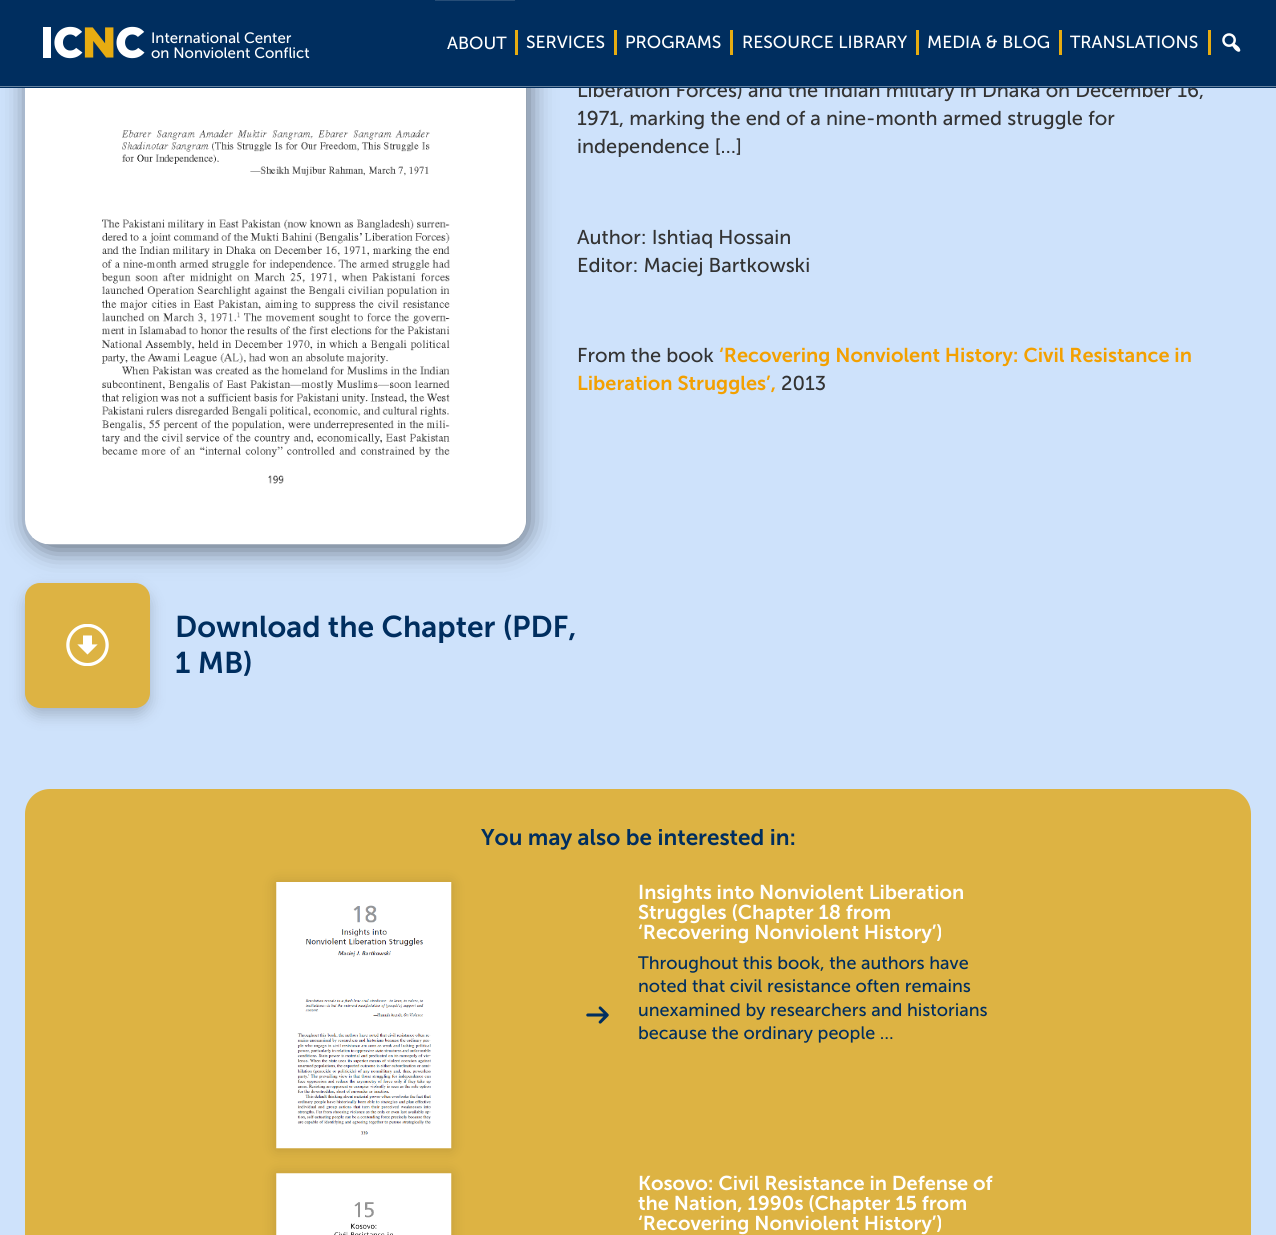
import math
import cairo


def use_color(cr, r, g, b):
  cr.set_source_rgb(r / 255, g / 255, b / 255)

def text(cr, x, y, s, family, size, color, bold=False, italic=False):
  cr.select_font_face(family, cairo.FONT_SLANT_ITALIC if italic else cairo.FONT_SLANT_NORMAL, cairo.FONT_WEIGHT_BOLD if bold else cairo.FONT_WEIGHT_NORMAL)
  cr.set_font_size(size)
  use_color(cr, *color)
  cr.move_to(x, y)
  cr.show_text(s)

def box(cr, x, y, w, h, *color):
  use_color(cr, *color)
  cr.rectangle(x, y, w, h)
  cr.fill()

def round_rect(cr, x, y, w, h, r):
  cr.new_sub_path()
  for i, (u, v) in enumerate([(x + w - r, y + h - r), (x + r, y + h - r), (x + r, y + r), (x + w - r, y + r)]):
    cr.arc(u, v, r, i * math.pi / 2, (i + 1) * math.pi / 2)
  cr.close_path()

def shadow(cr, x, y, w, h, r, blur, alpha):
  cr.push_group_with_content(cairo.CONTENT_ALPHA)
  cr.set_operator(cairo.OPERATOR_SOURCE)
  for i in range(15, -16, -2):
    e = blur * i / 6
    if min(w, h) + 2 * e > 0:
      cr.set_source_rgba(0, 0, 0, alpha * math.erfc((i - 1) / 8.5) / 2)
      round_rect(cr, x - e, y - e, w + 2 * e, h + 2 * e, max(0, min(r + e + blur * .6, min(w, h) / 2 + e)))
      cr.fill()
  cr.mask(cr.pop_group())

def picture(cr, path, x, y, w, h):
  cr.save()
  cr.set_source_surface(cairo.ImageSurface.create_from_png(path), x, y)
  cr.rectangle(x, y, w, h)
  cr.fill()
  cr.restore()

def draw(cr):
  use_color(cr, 206, 226, 251)
  cr.paint()
  use_color(cr, 0, 0, 0)
  shadow(cr, 25, 590, 125, 125, 15, 7.5, 0.2)
  use_color(cr, 221, 179, 67)
  round_rect(cr, 25, 583, 125, 125, 15)
  cr.fill()
  use_color(cr, 0, 0, 0)
  shadow(cr, 28, -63, 501, 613, 25, 12.5, 0.5)
  picture(cr, "img_03.png", 25, 88, 502, 457)
  picture(cr, "img_04.png", 66, 624, 43, 42)
  use_color(cr, 221, 179, 67)
  cr.new_path()
  cr.move_to(50, 789)
  cr.line_to(1226, 789)
  cr.curve_to(1240, 789, 1251, 800, 1251, 814)
  cr.line_to(1251, 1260)
  cr.line_to(25, 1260)
  cr.line_to(25, 814)
  cr.curve_to(25, 800, 36, 789, 50, 789)
  cr.close_path()
  cr.fill()
  picture(cr, "img_05.png", 586, 1006, 23, 18)
  use_color(cr, 0, 0, 0)
  shadow(cr, 276, 883, 175, 266, 0, 7.5, 0.15)
  picture(cr, "img_06.png", 276, 882, 176, 267)
  shadow(cr, 276, 1174, 175, 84, 0, 7.5, 0.15)
  picture(cr, "img_07.png", 276, 1173, 176, 62)
  text(cr, 577, 97, "Liberation Forces) and the Indian military in Dhaka on December 16,", "Museo Sans", 20, (51, 51, 51))
  box(cr, 0, 0, 1276, 88, 0, 46, 95)
  box(cr, 1208, 30, 3, 25, 231, 172, 17)
  picture(cr, "img_02.png", 1222, 33, 19, 19)
  box(cr, 1059, 30, 3, 25, 231, 172, 17)
  text(cr, 1070, 48, "TRANSLATIONS", "Museo Sans", 17.5, (255, 255, 255))
  box(cr, 916, 30, 3, 25, 231, 172, 17)
  text(cr, 927, 48, "MEDIA & BLOG", "Museo Sans", 17.5, (255, 255, 255))
  box(cr, 730, 30, 3, 25, 231, 172, 17)
  text(cr, 742, 48, "RESOURCE LIBRARY", "Museo Sans", 17.5, (255, 255, 255))
  box(cr, 614, 30, 3, 25, 231, 172, 17)
  text(cr, 625, 48, "PROGRAMS", "Museo Sans", 17.5, (255, 255, 255))
  box(cr, 515, 30, 3, 25, 231, 172, 17)
  text(cr, 526, 48, "SERVICES", "Museo Sans", 17.5, (255, 255, 255))
  text(cr, 447, 49, "ABOUT", "Museo Sans", 17.5, (255, 255, 255))
  box(cr, 435, 0, 80, 1, 38, 77, 119)
  picture(cr, "img_01.png", 43, 26, 102, 33)
  text(cr, 151, 58, "on Nonviolent Conflict", "Museo Sans", 15, (255, 255, 255))
  text(cr, 151, 43, "International Center", "Museo Sans", 15, (255, 255, 255))
  box(cr, 0, 86, 1276, 1, 102, 130, 159)
  text(cr, 577, 125, "1971, marking the end of a nine-month armed struggle for", "Museo Sans", 20, (51, 51, 51))
  text(cr, 577, 153, "independence […]", "Museo Sans", 20, (51, 51, 51))
  text(cr, 577, 244, "Author: Ishtiaq Hossain", "Museo Sans", 20, (51, 51, 51))
  text(cr, 577, 272, "Editor: Maciej Bartkowski", "Museo Sans", 20, (51, 51, 51))
  text(cr, 577, 362, "From the book", "Museo Sans", 20, (51, 51, 51))
  text(cr, 719, 362, "‘Recovering Nonviolent History: Civil Resistance in", "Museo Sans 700 SemiBold", 20, (243, 160, 0))
  text(cr, 577, 390, "Liberation Struggles’,", "Museo Sans 700 SemiBold", 20, (243, 160, 0))
  text(cr, 781, 390, "2013", "Museo Sans", 20, (51, 51, 51))
  text(cr, 175, 637, "Download the Chapter (PDF,", "Museo Sans 700 SemiBold", 30, (0, 46, 95))
  text(cr, 175, 673, "1 MB)", "Museo Sans 700 SemiBold", 30, (0, 46, 95))
  text(cr, 481, 845, "You may also be interested in:", "Museo Sans 700 SemiBold", 22.5, (0, 46, 95))
  text(cr, 638, 899, "Insights into Nonviolent Liberation", "Museo Sans 700 SemiBold", 20, (255, 255, 255))
  text(cr, 638, 919, "Struggles (Chapter 18 from", "Museo Sans 700 SemiBold", 20, (255, 255, 255))
  text(cr, 638, 939, "‘Recovering Nonviolent History’)", "Museo Sans 700 SemiBold", 20, (255, 255, 255))
  text(cr, 638, 969, "Throughout this book, the authors have", "Museo Sans", 18, (0, 46, 95))
  text(cr, 638, 992, "noted that civil resistance often remains", "Museo Sans", 18, (0, 46, 95))
  text(cr, 638, 1016, "unexamined by researchers and historians", "Museo Sans", 18, (0, 46, 95))
  text(cr, 638, 1039, "because the ordinary people …", "Museo Sans", 18, (0, 46, 95))
  text(cr, 638, 1190, "Kosovo: Civil Resistance in Defense of", "Museo Sans 700 SemiBold", 20, (255, 255, 255))
  text(cr, 638, 1210, "the Nation, 1990s (Chapter 15 from", "Museo Sans 700 SemiBold", 20, (255, 255, 255))
  text(cr, 638, 1230, "‘Recovering Nonviolent History’)", "Museo Sans 700 SemiBold", 20, (255, 255, 255))


surface = cairo.ImageSurface(cairo.FORMAT_RGB24, 1276, 1235)
cr = cairo.Context(surface)
options = cairo.FontOptions()
options.set_hint_metrics(cairo.HINT_METRICS_OFF)
options.set_hint_style(cairo.HINT_STYLE_NONE)
cr.set_font_options(options)
cr.set_miter_limit(4)
draw(cr)
surface.write_to_png("out.png")
